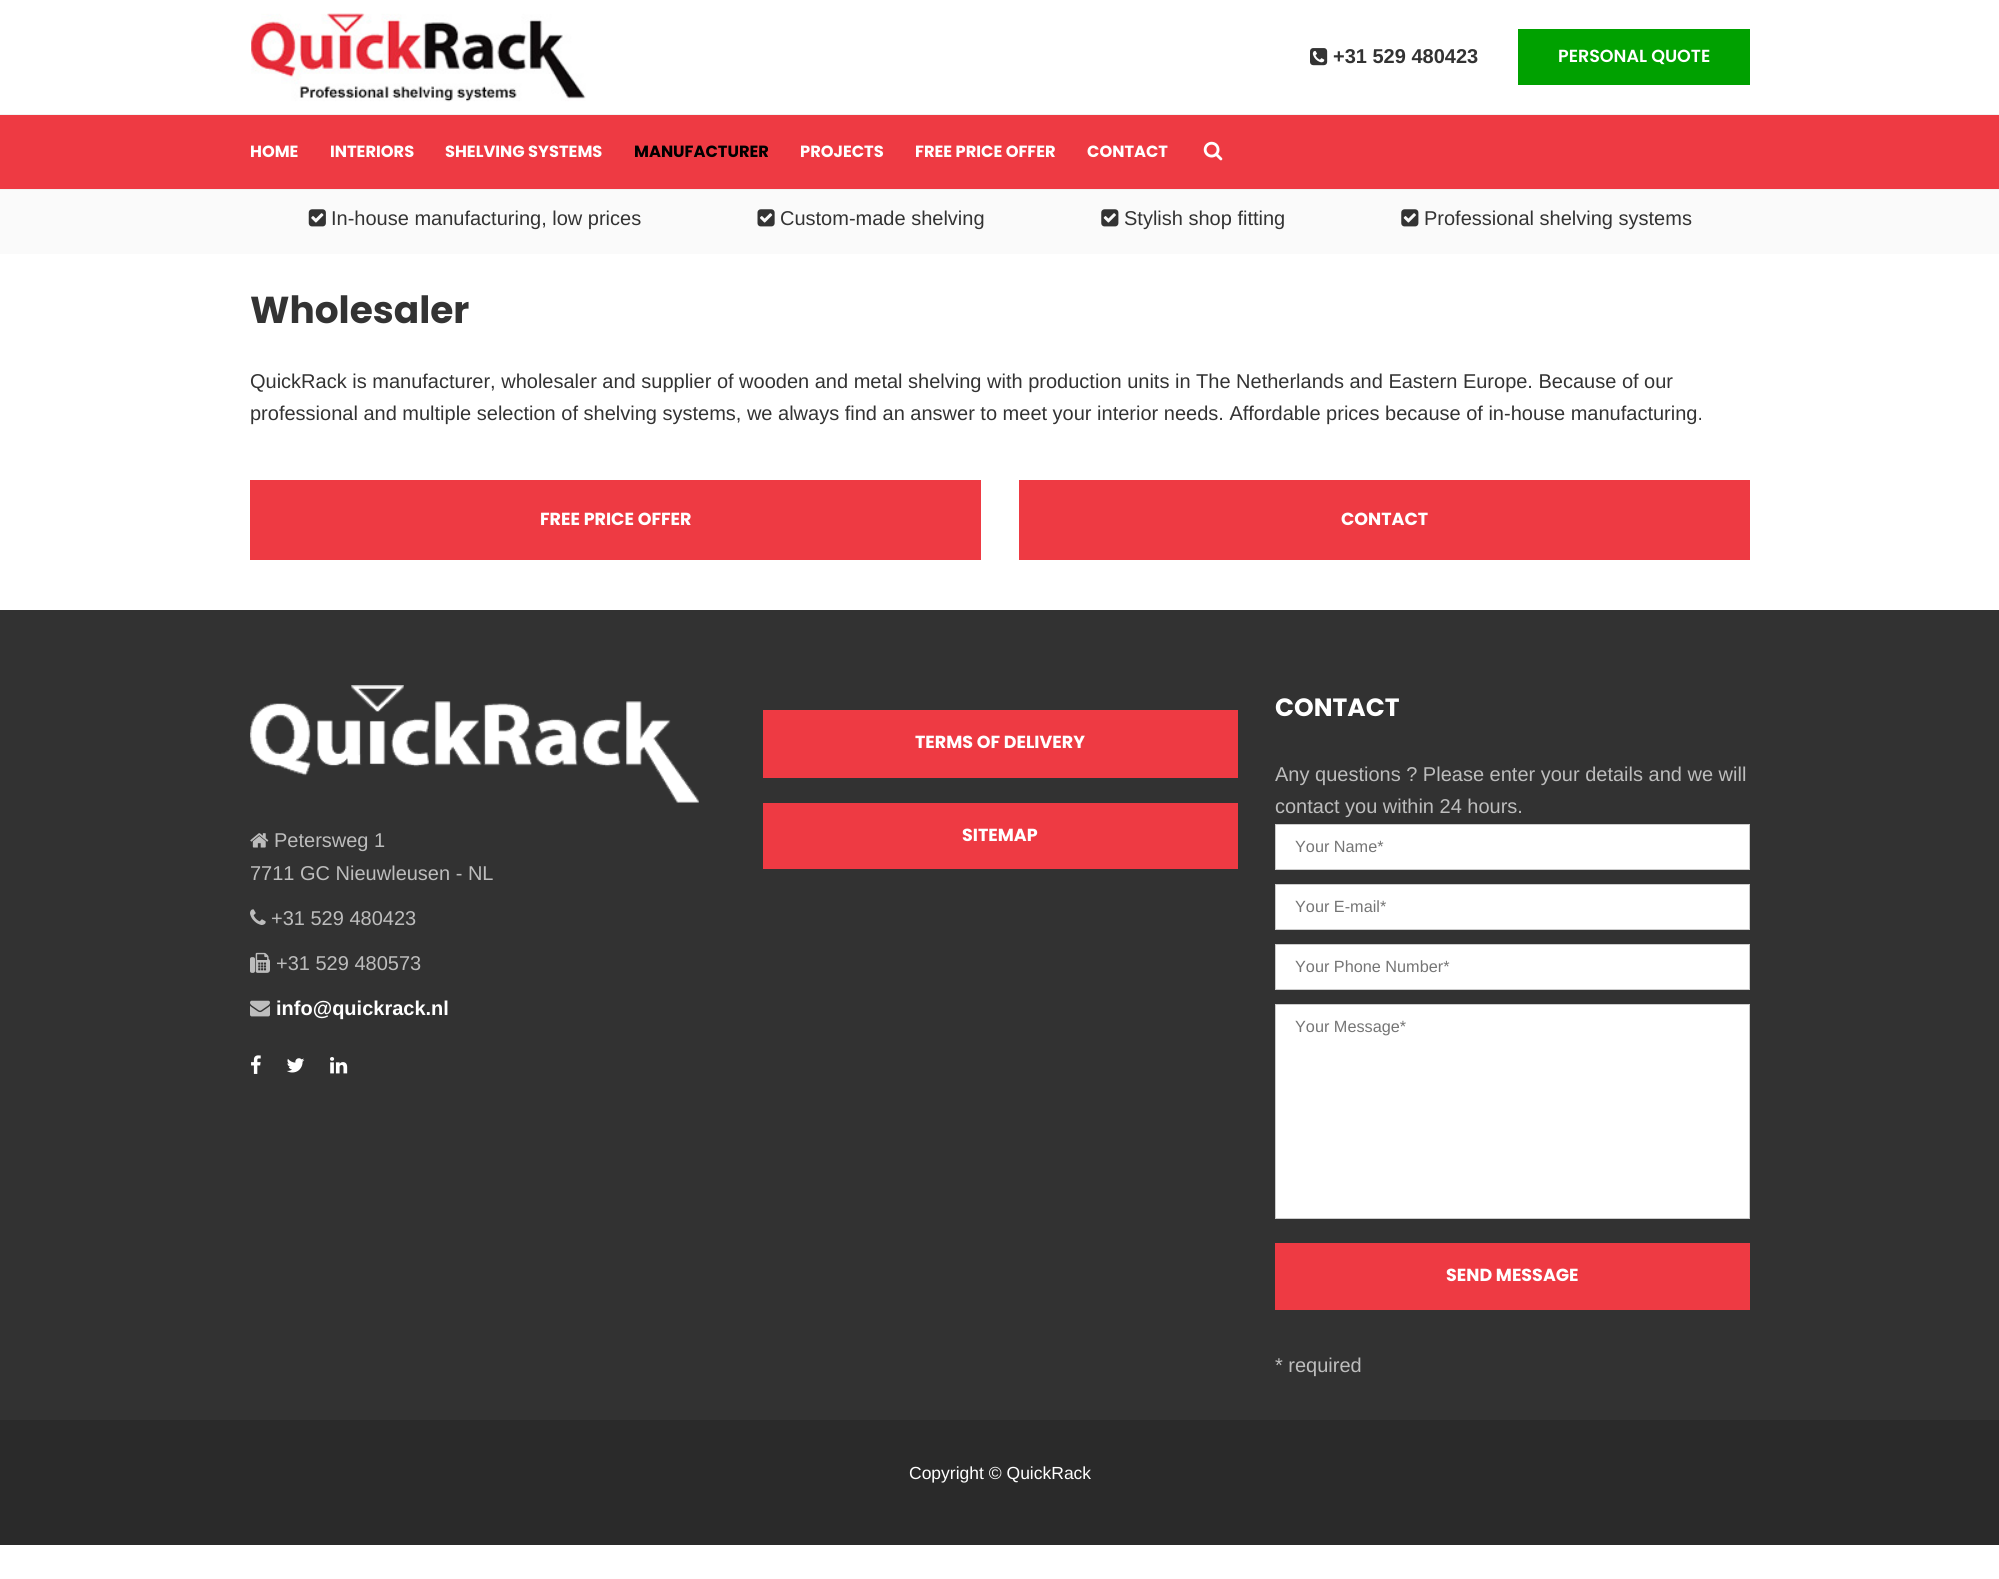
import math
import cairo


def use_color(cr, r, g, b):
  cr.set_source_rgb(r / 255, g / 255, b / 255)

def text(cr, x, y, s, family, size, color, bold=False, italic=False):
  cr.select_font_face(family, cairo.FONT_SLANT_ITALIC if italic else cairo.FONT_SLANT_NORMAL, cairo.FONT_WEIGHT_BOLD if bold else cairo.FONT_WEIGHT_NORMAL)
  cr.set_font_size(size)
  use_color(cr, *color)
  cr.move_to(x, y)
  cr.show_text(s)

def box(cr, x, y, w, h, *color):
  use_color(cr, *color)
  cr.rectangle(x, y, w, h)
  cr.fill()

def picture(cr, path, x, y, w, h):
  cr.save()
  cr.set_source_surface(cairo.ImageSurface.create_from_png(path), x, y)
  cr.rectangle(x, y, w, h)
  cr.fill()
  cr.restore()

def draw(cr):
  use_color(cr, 255, 255, 255)
  cr.paint()
  box(cr, 0, 114, 1999, 1, 242, 242, 242)
  picture(cr, "img_01.png", 251, 13, 335, 89)
  picture(cr, "img_02.png", 1310, 48, 18, 18)
  box(cr, 1518, 29, 232, 56, 0, 161, 0)
  box(cr, 0, 115, 1999, 74, 238, 58, 67)
  box(cr, 0, 189, 1999, 1, 242, 242, 242)
  picture(cr, "img_03.png", 1203, 141, 20, 20)
  box(cr, 0, 190, 1999, 64, 250, 250, 250)
  picture(cr, "img_04.png", 308, 209, 18, 18)
  picture(cr, "img_05.png", 757, 209, 18, 18)
  picture(cr, "img_06.png", 1101, 209, 18, 18)
  picture(cr, "img_06.png", 1401, 209, 18, 18)
  box(cr, 250, 480, 731, 80, 238, 58, 67)
  box(cr, 1019, 480, 731, 80, 238, 58, 67)
  box(cr, 0, 610, 1999, 810, 50, 50, 50)
  box(cr, 763, 710, 475, 68, 238, 58, 67)
  box(cr, 763, 803, 475, 66, 238, 58, 67)
  use_color(cr, 255, 255, 255)
  cr.rectangle(1275.5, 824.5, 474, 45)
  cr.fill_preserve()
  use_color(cr, 204, 204, 204)
  cr.set_line_width(1)
  cr.stroke()
  use_color(cr, 255, 255, 255)
  cr.rectangle(1275.5, 884.5, 474, 45)
  cr.fill_preserve()
  use_color(cr, 204, 204, 204)
  cr.stroke()
  use_color(cr, 255, 255, 255)
  cr.rectangle(1275.5, 944.5, 474, 45)
  cr.fill_preserve()
  use_color(cr, 204, 204, 204)
  cr.stroke()
  use_color(cr, 255, 255, 255)
  cr.rectangle(1275.5, 1004.5, 474, 214)
  cr.fill_preserve()
  use_color(cr, 204, 204, 204)
  cr.stroke()
  box(cr, 1275, 1243, 475, 67, 238, 58, 67)
  picture(cr, "img_07.png", 250, 685, 449, 118)
  picture(cr, "img_08.png", 250, 833, 19, 15)
  picture(cr, "img_09.png", 250, 909, 16, 16)
  picture(cr, "img_10.png", 250, 952, 20, 21)
  picture(cr, "img_11.png", 250, 1000, 20, 17)
  picture(cr, "img_12.png", 251, 1055, 10, 19)
  picture(cr, "img_13.png", 286, 1058, 19, 15)
  picture(cr, "img_14.png", 330, 1057, 18, 17)
  box(cr, 0, 1420, 1999, 125, 42, 42, 42)
  text(cr, 1333, 63, "+31 529 480423", "Liberation Sans", 20, (51, 51, 51), bold=True)
  text(cr, 1558, 62, "PERSONAL QUOTE", "Poppins SemiBold", 17.5, (255, 255, 255))
  text(cr, 250, 157, "HOME", "Poppins", 16.25, (255, 255, 255), bold=True)
  text(cr, 330, 157, "INTERIORS", "Poppins", 16.25, (255, 255, 255), bold=True)
  text(cr, 445, 157, "SHELVING SYSTEMS", "Poppins", 16.25, (255, 255, 255), bold=True)
  text(cr, 634, 157, "MANUFACTURER", "Poppins", 16.25, (0, 0, 0), bold=True)
  text(cr, 800, 157, "PROJECTS", "Poppins", 16.25, (255, 255, 255), bold=True)
  text(cr, 915, 157, "FREE PRICE OFFER", "Poppins", 16.25, (255, 255, 255), bold=True)
  text(cr, 1087, 157, "CONTACT", "Poppins", 16.25, (255, 255, 255), bold=True)
  text(cr, 331, 225, "In-house manufacturing, low prices", "Liberation Sans", 20, (51, 51, 51))
  text(cr, 780, 225, "Custom-made shelving", "Liberation Sans", 20, (51, 51, 51))
  text(cr, 1124, 225, "Stylish shop fitting", "Liberation Sans", 20, (51, 51, 51))
  text(cr, 1424, 225, "Professional shelving systems", "Liberation Sans", 20, (51, 51, 51))
  text(cr, 250, 323, "Wholesaler", "Poppins", 37.5, (51, 51, 51), bold=True)
  text(cr, 250, 388, "QuickRack is manufacturer, wholesaler and supplier of wooden and metal shelving with production units in The Netherlands and Eastern Europe. Because of our", "Liberation Sans", 20, (51, 51, 51))
  text(cr, 250, 420, "professional and multiple selection of shelving systems, we always find an answer to meet your interior needs. Affordable prices because of in-house manufacturing.", "Liberation Sans", 20, (51, 51, 51))
  text(cr, 540, 525, "FREE PRICE OFFER", "Poppins", 17.5, (255, 255, 255), bold=True)
  text(cr, 1341, 525, "CONTACT", "Poppins", 17.5, (255, 255, 255), bold=True)
  text(cr, 915, 748, "TERMS OF DELIVERY", "Poppins", 17.5, (255, 255, 255), bold=True)
  text(cr, 962, 841, "SITEMAP", "Poppins", 17.5, (255, 255, 255), bold=True)
  text(cr, 1275, 716, "CONTACT", "Poppins", 25, (255, 255, 255), bold=True)
  text(cr, 1275, 781, "Any questions ? Please enter your details and we will", "Liberation Sans", 20, (189, 189, 189))
  text(cr, 1275, 813, "contact you within 24 hours.", "Liberation Sans", 20, (189, 189, 189))
  text(cr, 1295, 852, "Your Name*", "Liberation Sans", 16.25, (117, 117, 117))
  text(cr, 1295, 912, "Your E-mail*", "Liberation Sans", 16.25, (117, 117, 117))
  text(cr, 1295, 972, "Your Phone Number*", "Liberation Sans", 16.25, (117, 117, 117))
  text(cr, 1295, 1032, "Your Message*", "Liberation Sans", 16.25, (117, 117, 117))
  text(cr, 1446, 1281, "SEND MESSAGE", "Poppins", 17.5, (255, 255, 255), bold=True)
  text(cr, 1275, 1372, "* required", "Liberation Sans", 20, (189, 189, 189))
  text(cr, 274, 847, "Petersweg 1", "Liberation Sans", 20, (189, 189, 189))
  text(cr, 250, 880, "7711 GC Nieuwleusen - NL", "Liberation Sans", 20, (189, 189, 189))
  text(cr, 271, 925, "+31 529 480423", "Liberation Sans", 20, (189, 189, 189))
  text(cr, 276, 970, "+31 529 480573", "Liberation Sans", 20, (189, 189, 189))
  text(cr, 276, 1015, "info@quickrack.nl", "Liberation Sans", 20, (255, 255, 255), bold=True)
  text(cr, 909, 1479, "Copyright © QuickRack", "Liberation Sans", 17.5, (255, 255, 255))


surface = cairo.ImageSurface(cairo.FORMAT_RGB24, 1999, 1579)
cr = cairo.Context(surface)
options = cairo.FontOptions()
options.set_hint_metrics(cairo.HINT_METRICS_OFF)
options.set_hint_style(cairo.HINT_STYLE_NONE)
cr.set_font_options(options)
cr.set_miter_limit(4)
draw(cr)
surface.write_to_png("out.png")
